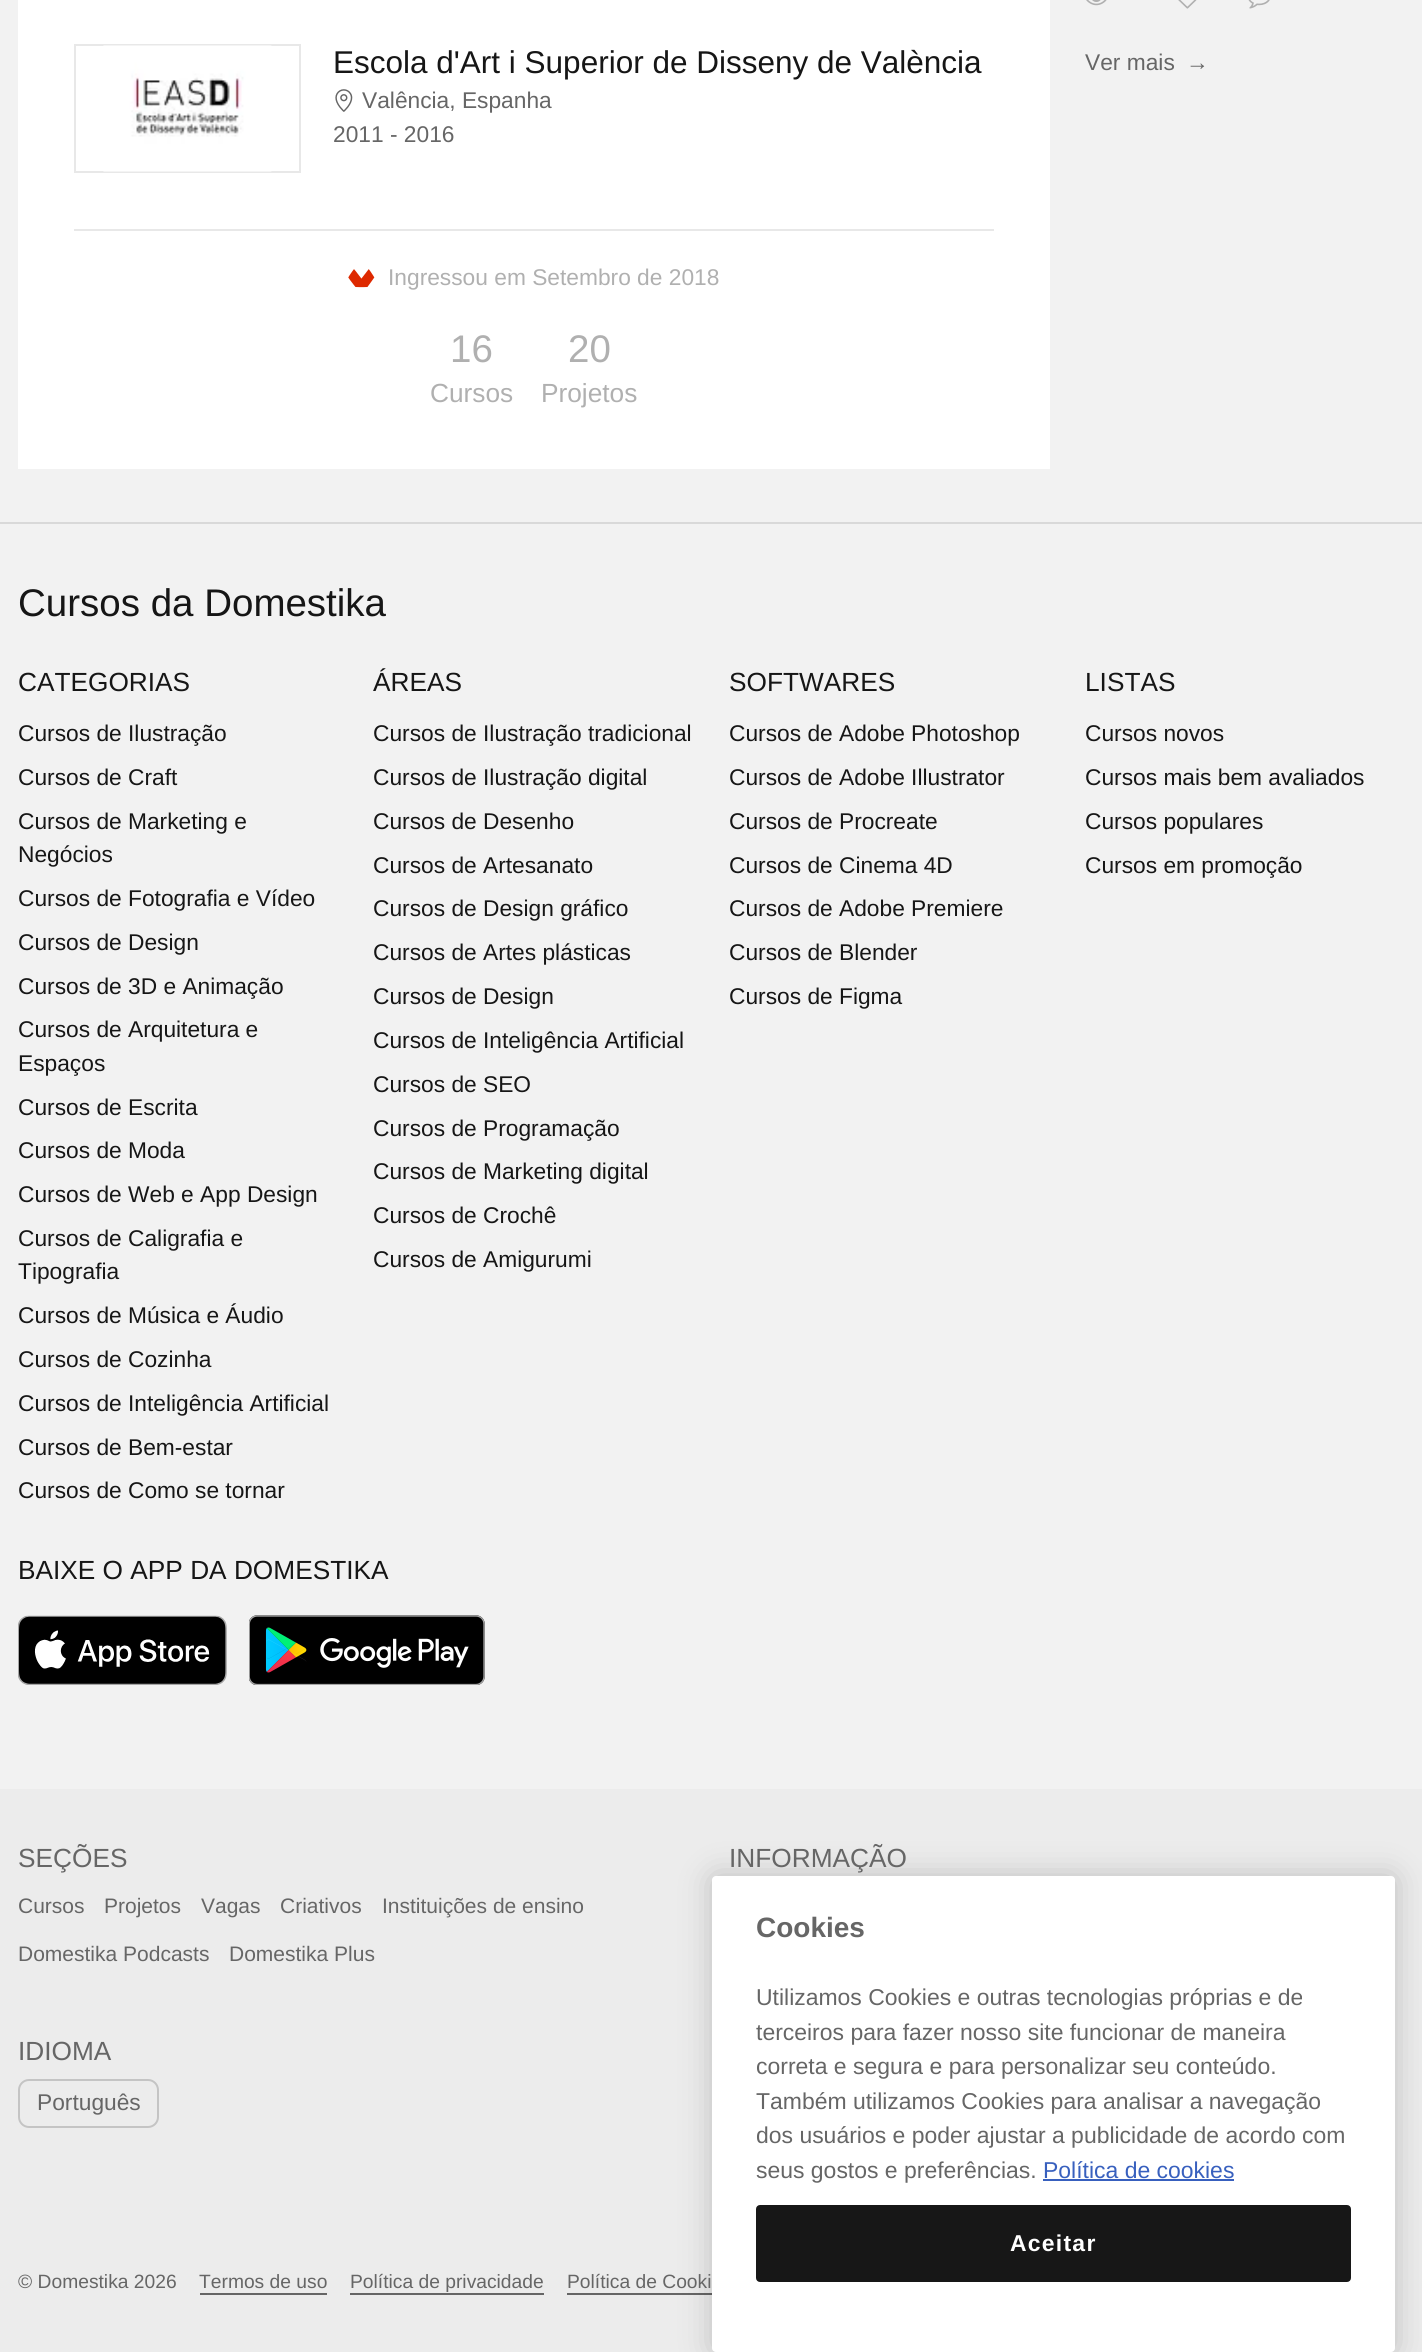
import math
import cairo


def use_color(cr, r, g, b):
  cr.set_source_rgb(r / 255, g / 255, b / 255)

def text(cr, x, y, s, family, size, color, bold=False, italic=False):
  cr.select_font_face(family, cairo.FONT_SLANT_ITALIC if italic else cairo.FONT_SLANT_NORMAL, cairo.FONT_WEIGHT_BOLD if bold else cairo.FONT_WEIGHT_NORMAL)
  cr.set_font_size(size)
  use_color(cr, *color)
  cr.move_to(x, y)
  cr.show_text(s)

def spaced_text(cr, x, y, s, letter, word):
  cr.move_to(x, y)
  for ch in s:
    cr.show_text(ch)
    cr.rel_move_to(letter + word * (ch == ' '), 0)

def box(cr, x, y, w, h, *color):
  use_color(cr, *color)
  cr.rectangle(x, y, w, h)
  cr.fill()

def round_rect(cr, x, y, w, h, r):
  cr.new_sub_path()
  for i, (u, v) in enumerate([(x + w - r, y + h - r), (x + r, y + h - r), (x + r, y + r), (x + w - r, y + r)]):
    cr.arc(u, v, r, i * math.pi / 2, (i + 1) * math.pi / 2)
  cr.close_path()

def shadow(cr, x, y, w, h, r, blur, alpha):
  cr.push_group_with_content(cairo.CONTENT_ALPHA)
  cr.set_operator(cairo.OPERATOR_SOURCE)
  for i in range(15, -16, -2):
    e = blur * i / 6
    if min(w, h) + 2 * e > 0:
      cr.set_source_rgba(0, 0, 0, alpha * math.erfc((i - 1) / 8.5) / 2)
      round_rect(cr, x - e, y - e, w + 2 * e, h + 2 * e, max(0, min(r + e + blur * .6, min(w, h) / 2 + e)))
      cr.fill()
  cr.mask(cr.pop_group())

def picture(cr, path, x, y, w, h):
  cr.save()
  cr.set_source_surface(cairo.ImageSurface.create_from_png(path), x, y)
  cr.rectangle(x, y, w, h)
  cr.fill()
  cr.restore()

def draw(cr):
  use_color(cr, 242, 242, 242)
  cr.paint()
  box(cr, 18, 0, 1032, 469, 255, 255, 255)
  cr.rectangle(75, 45, 225, 127)
  use_color(cr, 232, 232, 232)
  cr.stroke()
  picture(cr, "img_01.png", 103, 45, 169, 127)
  picture(cr, "img_02.png", 335, 89, 18, 23)
  box(cr, 74, 229, 920, 2, 232, 232, 232)
  picture(cr, "img_03.png", 348, 269, 27, 19)
  picture(cr, "img_04.png", 1086, 0, 21, 6)
  picture(cr, "img_05.png", 1178, 0, 19, 9)
  picture(cr, "img_06.png", 1248, 0, 22, 9)
  box(cr, 0, 522, 1422, 2, 217, 217, 217)
  picture(cr, "img_07.png", 18, 1615, 209, 70)
  picture(cr, "img_08.png", 249, 1615, 236, 70)
  box(cr, 0, 1789, 1422, 563, 236, 236, 236)
  round_rect(cr, 19, 2080, 139, 47, 10)
  use_color(cr, 196, 196, 196)
  cr.stroke()
  box(cr, 200, 2293, 127, 2, 102, 102, 102)
  box(cr, 350, 2293, 194, 2, 102, 102, 102)
  box(cr, 567, 2293, 145, 2, 102, 102, 102)
  use_color(cr, 0, 0, 0)
  shadow(cr, 712, 1876, 683, 476, 4, 16, 0.2)
  use_color(cr, 255, 255, 255)
  round_rect(cr, 712, 1876, 683, 476, 4)
  cr.fill()
  box(cr, 1043, 2179, 191, 2, 56, 96, 190)
  use_color(cr, 23, 23, 23)
  round_rect(cr, 757, 2206, 593, 75, 3)
  cr.fill_preserve()
  cr.stroke()
  text(cr, 333, 73, "Escola d'Art i Superior de Disseny de València", "Liberation Sans", 31.5, (22, 22, 22))
  text(cr, 362, 108, "Valência, Espanha", "Liberation Sans", 22.75, (102, 102, 102))
  text(cr, 333, 142, "2011 - 2016", "Liberation Sans", 22.75, (102, 102, 102))
  text(cr, 388, 285, "Ingressou em Setembro de 2018", "Liberation Sans", 22.75, (176, 176, 176))
  text(cr, 450, 362, "16", "Liberation Sans", 38.5, (176, 176, 176))
  text(cr, 430, 402, "Cursos", "Liberation Sans", 26.25, (176, 176, 176))
  text(cr, 568, 362, "20", "Liberation Sans", 38.5, (176, 176, 176))
  text(cr, 541, 402, "Projetos", "Liberation Sans", 26.25, (176, 176, 176))
  text(cr, 1085, 70, "Ver mais", "Liberation Sans", 22.75, (102, 102, 102))
  text(cr, 1186, 70, "→", "Liberation Sans", 22.75, (102, 102, 102))
  text(cr, 18, 616, "Cursos da Domestika", "Liberation Sans", 38.5, (22, 22, 22))
  text(cr, 18, 691, "CATEGORIAS", "Liberation Sans", 26.25, (22, 22, 22))
  text(cr, 18, 741, "Cursos de Ilustração", "Liberation Sans", 22.75, (22, 22, 22))
  text(cr, 18, 785, "Cursos de Craft", "Liberation Sans", 22.75, (22, 22, 22))
  text(cr, 18, 829, "Cursos de Marketing e", "Liberation Sans", 22.75, (22, 22, 22))
  text(cr, 18, 862, "Negócios", "Liberation Sans", 22.75, (22, 22, 22))
  text(cr, 18, 906, "Cursos de Fotografia e Vídeo", "Liberation Sans", 22.75, (22, 22, 22))
  text(cr, 18, 950, "Cursos de Design", "Liberation Sans", 22.75, (22, 22, 22))
  text(cr, 18, 994, "Cursos de 3D e Animação", "Liberation Sans", 22.75, (22, 22, 22))
  text(cr, 18, 1037, "Cursos de Arquitetura e", "Liberation Sans", 22.75, (22, 22, 22))
  text(cr, 18, 1071, "Espaços", "Liberation Sans", 22.75, (22, 22, 22))
  text(cr, 18, 1115, "Cursos de Escrita", "Liberation Sans", 22.75, (22, 22, 22))
  text(cr, 18, 1158, "Cursos de Moda", "Liberation Sans", 22.75, (22, 22, 22))
  text(cr, 18, 1202, "Cursos de Web e App Design", "Liberation Sans", 22.75, (22, 22, 22))
  text(cr, 18, 1246, "Cursos de Caligrafia e", "Liberation Sans", 22.75, (22, 22, 22))
  text(cr, 18, 1279, "Tipografia", "Liberation Sans", 22.75, (22, 22, 22))
  text(cr, 18, 1323, "Cursos de Música e Áudio", "Liberation Sans", 22.75, (22, 22, 22))
  text(cr, 18, 1367, "Cursos de Cozinha", "Liberation Sans", 22.75, (22, 22, 22))
  text(cr, 18, 1411, "Cursos de Inteligência Artificial", "Liberation Sans", 22.75, (22, 22, 22))
  text(cr, 18, 1455, "Cursos de Bem-estar", "Liberation Sans", 22.75, (22, 22, 22))
  text(cr, 18, 1498, "Cursos de Como se tornar", "Liberation Sans", 22.75, (22, 22, 22))
  text(cr, 373, 691, "ÁREAS", "Liberation Sans", 26.25, (22, 22, 22))
  text(cr, 373, 741, "Cursos de Ilustração tradicional", "Liberation Sans", 22.75, (22, 22, 22))
  text(cr, 373, 785, "Cursos de Ilustração digital", "Liberation Sans", 22.75, (22, 22, 22))
  text(cr, 373, 829, "Cursos de Desenho", "Liberation Sans", 22.75, (22, 22, 22))
  text(cr, 373, 873, "Cursos de Artesanato", "Liberation Sans", 22.75, (22, 22, 22))
  text(cr, 373, 916, "Cursos de Design gráfico", "Liberation Sans", 22.75, (22, 22, 22))
  text(cr, 373, 960, "Cursos de Artes plásticas", "Liberation Sans", 22.75, (22, 22, 22))
  text(cr, 373, 1004, "Cursos de Design", "Liberation Sans", 22.75, (22, 22, 22))
  text(cr, 373, 1048, "Cursos de Inteligência Artificial", "Liberation Sans", 22.75, (22, 22, 22))
  text(cr, 373, 1092, "Cursos de SEO", "Liberation Sans", 22.75, (22, 22, 22))
  text(cr, 373, 1136, "Cursos de Programação", "Liberation Sans", 22.75, (22, 22, 22))
  text(cr, 373, 1179, "Cursos de Marketing digital", "Liberation Sans", 22.75, (22, 22, 22))
  text(cr, 373, 1223, "Cursos de Crochê", "Liberation Sans", 22.75, (22, 22, 22))
  text(cr, 373, 1267, "Cursos de Amigurumi", "Liberation Sans", 22.75, (22, 22, 22))
  text(cr, 729, 691, "SOFTWARES", "Liberation Sans", 26.25, (22, 22, 22))
  text(cr, 729, 741, "Cursos de Adobe Photoshop", "Liberation Sans", 22.75, (22, 22, 22))
  text(cr, 729, 785, "Cursos de Adobe Illustrator", "Liberation Sans", 22.75, (22, 22, 22))
  text(cr, 729, 829, "Cursos de Procreate", "Liberation Sans", 22.75, (22, 22, 22))
  text(cr, 729, 873, "Cursos de Cinema 4D", "Liberation Sans", 22.75, (22, 22, 22))
  text(cr, 729, 916, "Cursos de Adobe Premiere", "Liberation Sans", 22.75, (22, 22, 22))
  text(cr, 729, 960, "Cursos de Blender", "Liberation Sans", 22.75, (22, 22, 22))
  text(cr, 729, 1004, "Cursos de Figma", "Liberation Sans", 22.75, (22, 22, 22))
  text(cr, 1085, 691, "LISTAS", "Liberation Sans", 26.25, (22, 22, 22))
  text(cr, 1085, 741, "Cursos novos", "Liberation Sans", 22.75, (22, 22, 22))
  text(cr, 1085, 785, "Cursos mais bem avaliados", "Liberation Sans", 22.75, (22, 22, 22))
  text(cr, 1085, 829, "Cursos populares", "Liberation Sans", 22.75, (22, 22, 22))
  text(cr, 1085, 873, "Cursos em promoção", "Liberation Sans", 22.75, (22, 22, 22))
  text(cr, 18, 1579, "BAIXE O APP DA DOMESTIKA", "Liberation Sans", 26.25, (22, 22, 22))
  text(cr, 18, 1867, "SEÇÕES", "Liberation Sans", 26.25, (102, 102, 102))
  text(cr, 18, 1913, "Cursos", "Liberation Sans", 21, (102, 102, 102))
  text(cr, 104, 1913, "Projetos", "Liberation Sans", 21, (102, 102, 102))
  text(cr, 201, 1913, "Vagas", "Liberation Sans", 21, (102, 102, 102))
  text(cr, 280, 1913, "Criativos", "Liberation Sans", 21, (102, 102, 102))
  text(cr, 382, 1913, "Instituições de ensino", "Liberation Sans", 21, (102, 102, 102))
  text(cr, 18, 1961, "Domestika Podcasts", "Liberation Sans", 21, (102, 102, 102))
  text(cr, 229, 1961, "Domestika Plus", "Liberation Sans", 21, (102, 102, 102))
  text(cr, 729, 1867, "INFORMAÇÃO", "Liberation Sans", 26.25, (102, 102, 102))
  text(cr, 18, 2060, "IDIOMA", "Liberation Sans", 26.25, (102, 102, 102))
  text(cr, 37, 2110, "Português", "Liberation Sans", 22.75, (102, 102, 102))
  text(cr, 18, 2288, "© Domestika 2026", "Liberation Sans", 19.25, (102, 102, 102))
  text(cr, 199, 2288, "Termos de uso", "Liberation Sans", 19.25, (102, 102, 102))
  text(cr, 350, 2288, "Política de privacidade", "Liberation Sans", 19.25, (102, 102, 102))
  text(cr, 567, 2288, "Política de Cooki", "Liberation Sans", 19.25, (102, 102, 102))
  text(cr, 756, 1937, "Cookies", "Liberation Sans", 28, (102, 102, 102), bold=True)
  text(cr, 756, 2005, "Utilizamos Cookies e outras tecnologias próprias e de", "Liberation Sans", 22.95, (102, 102, 102))
  text(cr, 756, 2040, "terceiros para fazer nosso site funcionar de maneira", "Liberation Sans", 22.95, (102, 102, 102))
  text(cr, 756, 2074, "correta e segura e para personalizar seu conteúdo.", "Liberation Sans", 22.95, (102, 102, 102))
  text(cr, 756, 2109, "Também utilizamos Cookies para analisar a navegação", "Liberation Sans", 22.95, (102, 102, 102))
  text(cr, 756, 2143, "dos usuários e poder ajustar a publicidade de acordo com", "Liberation Sans", 22.95, (102, 102, 102))
  text(cr, 756, 2178, "seus gostos e preferências.", "Liberation Sans", 22.95, (102, 102, 102))
  text(cr, 1043, 2178, "Política de cookies", "Liberation Sans", 22.95, (56, 96, 190))
  cr.select_font_face("Liberation Sans", cairo.FONT_SLANT_NORMAL, cairo.FONT_WEIGHT_BOLD)
  use_color(cr, 255, 255, 255)
  spaced_text(cr, 1010, 2251, "Aceitar", 1.25, 0)


surface = cairo.ImageSurface(cairo.FORMAT_RGB24, 1422, 2352)
cr = cairo.Context(surface)
options = cairo.FontOptions()
options.set_hint_metrics(cairo.HINT_METRICS_OFF)
options.set_hint_style(cairo.HINT_STYLE_NONE)
cr.set_font_options(options)
cr.set_miter_limit(4)
draw(cr)
surface.write_to_png("out.png")
